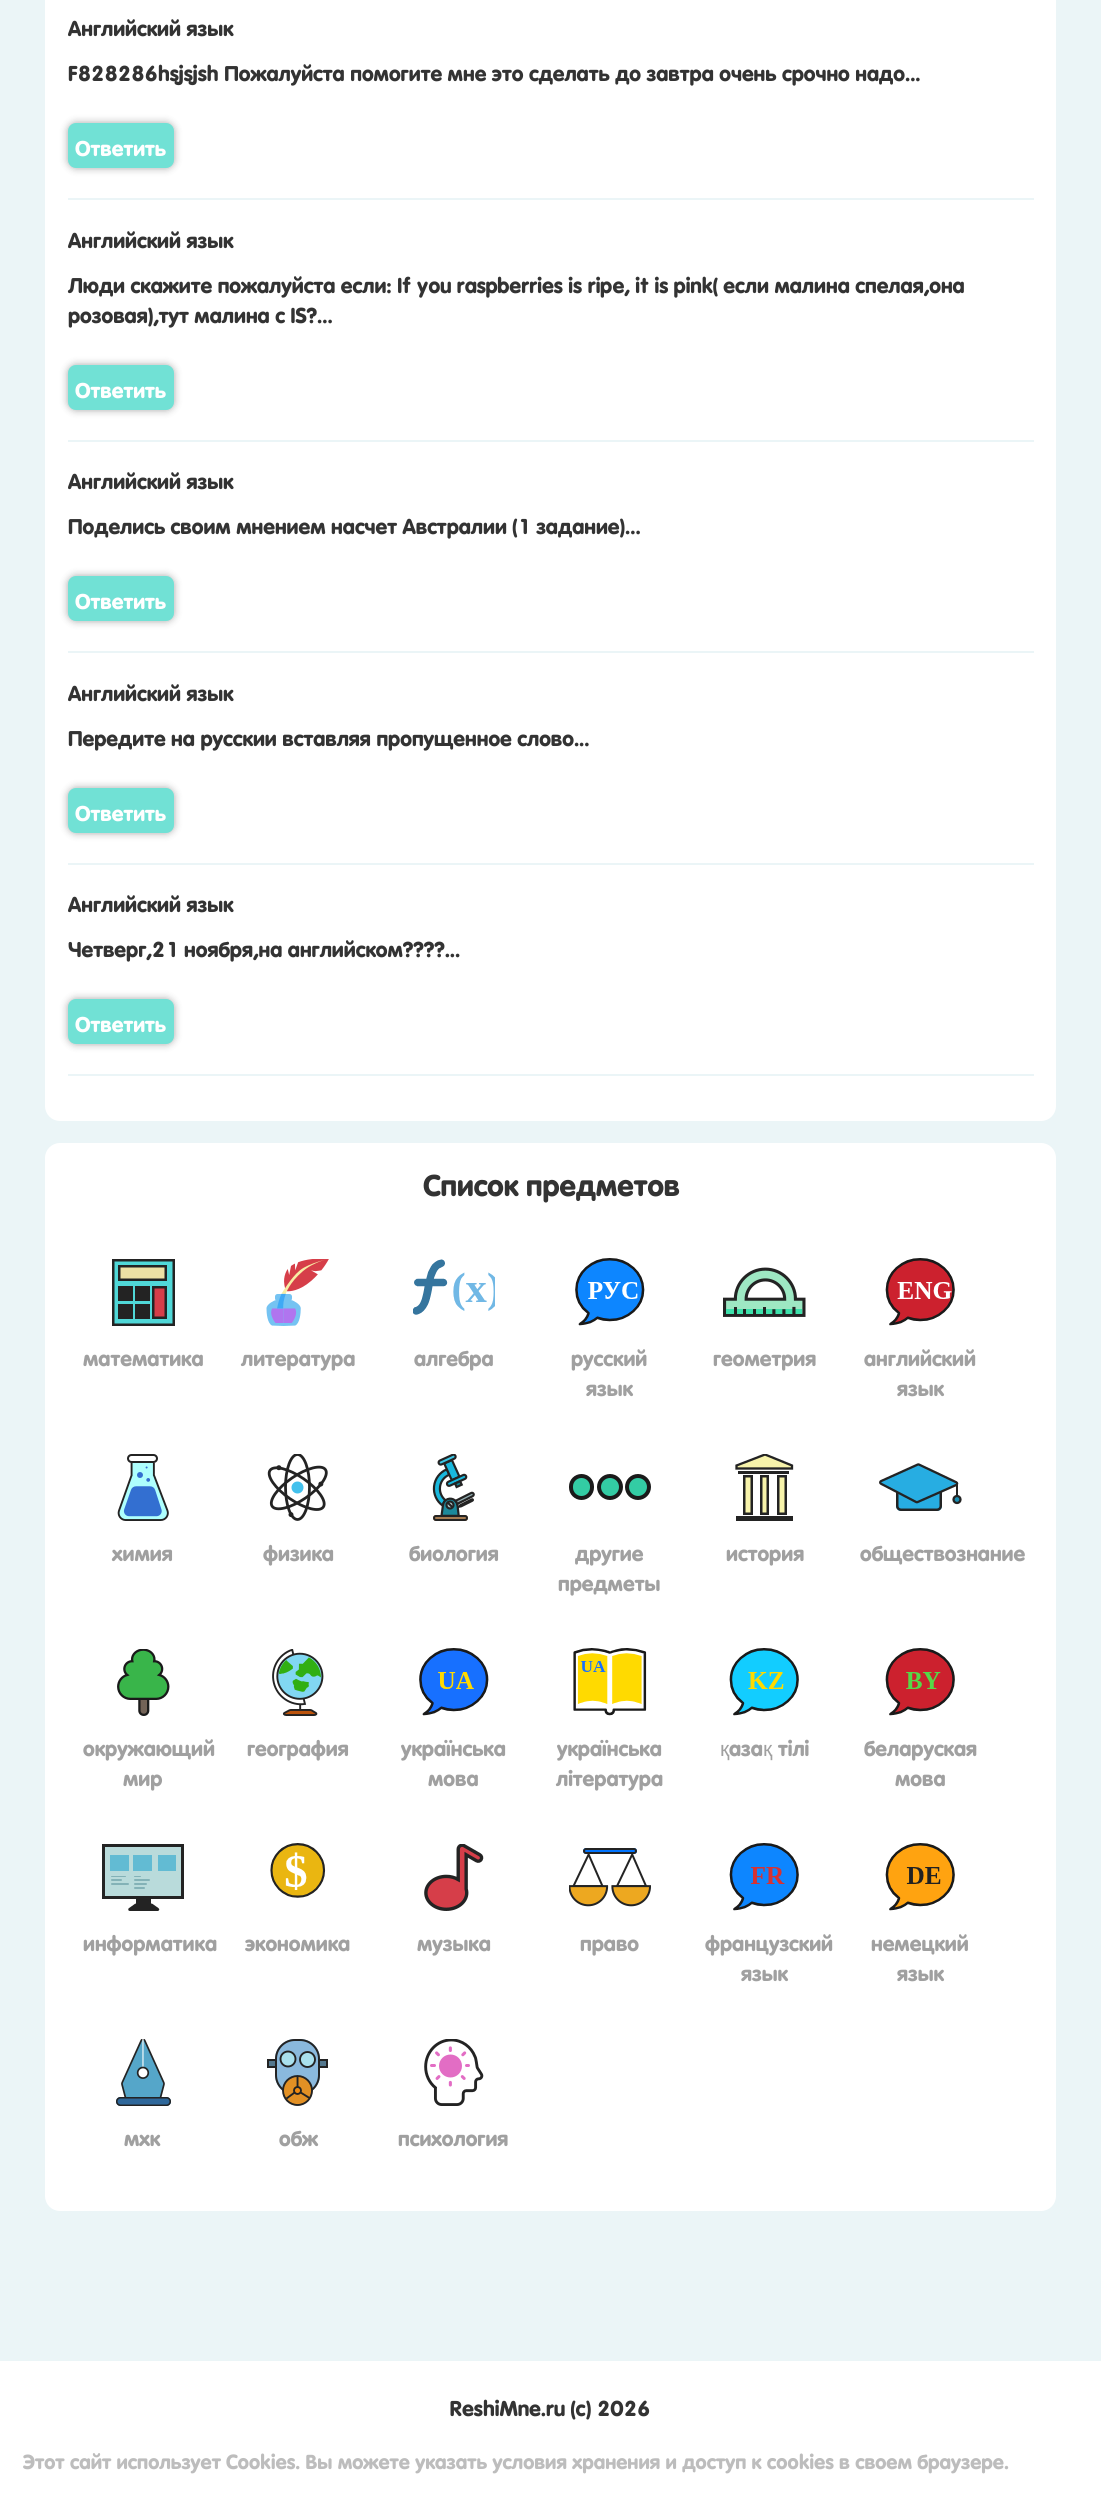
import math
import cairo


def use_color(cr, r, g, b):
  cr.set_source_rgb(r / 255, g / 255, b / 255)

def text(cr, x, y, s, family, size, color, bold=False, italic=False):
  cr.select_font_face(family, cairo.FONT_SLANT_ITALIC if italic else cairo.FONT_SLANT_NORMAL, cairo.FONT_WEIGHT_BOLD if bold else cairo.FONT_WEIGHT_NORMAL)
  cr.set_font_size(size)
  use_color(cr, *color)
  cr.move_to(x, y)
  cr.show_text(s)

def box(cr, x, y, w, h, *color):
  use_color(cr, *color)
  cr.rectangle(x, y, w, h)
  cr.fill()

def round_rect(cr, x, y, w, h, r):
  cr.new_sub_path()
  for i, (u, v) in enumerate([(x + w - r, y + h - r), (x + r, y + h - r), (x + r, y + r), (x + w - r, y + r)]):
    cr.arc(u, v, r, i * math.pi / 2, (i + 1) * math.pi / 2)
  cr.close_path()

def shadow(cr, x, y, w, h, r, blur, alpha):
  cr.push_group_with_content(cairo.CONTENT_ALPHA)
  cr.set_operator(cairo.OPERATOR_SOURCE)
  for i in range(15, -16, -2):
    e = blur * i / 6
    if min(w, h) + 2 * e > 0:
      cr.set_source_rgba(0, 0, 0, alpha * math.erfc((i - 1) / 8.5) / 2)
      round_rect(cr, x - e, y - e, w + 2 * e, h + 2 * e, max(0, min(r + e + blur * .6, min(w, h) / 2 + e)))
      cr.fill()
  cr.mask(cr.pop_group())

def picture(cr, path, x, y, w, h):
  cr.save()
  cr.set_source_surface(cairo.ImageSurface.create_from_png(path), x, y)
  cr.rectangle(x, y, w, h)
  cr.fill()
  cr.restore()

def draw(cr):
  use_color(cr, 255, 255, 255)
  cr.paint()
  box(cr, 0, 0, 1101, 2361, 235, 245, 247)
  use_color(cr, 255, 255, 255)
  round_rect(cr, 45, -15, 1011, 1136, 15)
  cr.fill()
  box(cr, 68, 198, 966, 2, 235, 245, 247)
  use_color(cr, 0, 0, 0)
  shadow(cr, 68, 123, 106, 45, 8, 4, 0.35)
  use_color(cr, 113, 225, 213)
  round_rect(cr, 68, 123, 106, 45, 8)
  cr.fill()
  box(cr, 68, 440, 966, 2, 235, 245, 247)
  use_color(cr, 0, 0, 0)
  shadow(cr, 68, 365, 106, 45, 8, 4, 0.35)
  use_color(cr, 113, 225, 213)
  round_rect(cr, 68, 365, 106, 45, 8)
  cr.fill()
  box(cr, 68, 651, 966, 2, 235, 245, 247)
  use_color(cr, 0, 0, 0)
  shadow(cr, 68, 576, 106, 45, 8, 4, 0.35)
  use_color(cr, 113, 225, 213)
  round_rect(cr, 68, 576, 106, 45, 8)
  cr.fill()
  box(cr, 68, 863, 966, 2, 235, 245, 247)
  use_color(cr, 0, 0, 0)
  shadow(cr, 68, 788, 106, 45, 8, 4, 0.35)
  use_color(cr, 113, 225, 213)
  round_rect(cr, 68, 788, 106, 45, 8)
  cr.fill()
  box(cr, 68, 1074, 966, 2, 235, 245, 247)
  use_color(cr, 0, 0, 0)
  shadow(cr, 68, 999, 106, 45, 8, 4, 0.35)
  use_color(cr, 113, 225, 213)
  round_rect(cr, 68, 999, 106, 45, 8)
  cr.fill()
  use_color(cr, 255, 255, 255)
  round_rect(cr, 45, 1143, 1011, 1068, 15)
  cr.fill()
  picture(cr, "img_01.png", 112, 1259, 63, 67)
  picture(cr, "img_02.png", 266, 1259, 63, 67)
  picture(cr, "img_03.png", 413, 1259, 82, 56)
  picture(cr, "img_04.png", 575, 1258, 70, 68)
  picture(cr, "img_05.png", 723, 1267, 83, 50)
  picture(cr, "img_06.png", 885, 1258, 70, 68)
  picture(cr, "img_07.png", 117, 1454, 52, 67)
  picture(cr, "img_08.png", 267, 1454, 61, 67)
  picture(cr, "img_09.png", 432, 1454, 43, 67)
  use_color(cr, 51, 204, 164)
  round_rect(cr, 571, 1476, 21, 22, 10.5)
  cr.fill_preserve()
  use_color(cr, 26, 26, 26)
  cr.set_line_width(4)
  cr.stroke()
  use_color(cr, 51, 204, 164)
  cr.arc(610, 1487, 11, 0, 2 * math.pi)
  cr.fill_preserve()
  use_color(cr, 26, 26, 26)
  cr.stroke()
  use_color(cr, 51, 204, 164)
  cr.arc(638, 1487, 11, 0, 2 * math.pi)
  cr.fill_preserve()
  use_color(cr, 26, 26, 26)
  cr.stroke()
  use_color(cr, 247, 243, 170)
  cr.rectangle(744.25, 1476.25, 7.5, 37.5)
  cr.fill_preserve()
  use_color(cr, 35, 35, 35)
  cr.set_line_width(2.5)
  cr.stroke()
  use_color(cr, 247, 243, 170)
  cr.rectangle(761.25, 1476.25, 6.5, 37.5)
  cr.fill_preserve()
  use_color(cr, 35, 35, 35)
  cr.stroke()
  use_color(cr, 247, 243, 170)
  cr.rectangle(778.25, 1476.25, 7.5, 37.5)
  cr.fill_preserve()
  use_color(cr, 35, 35, 35)
  cr.stroke()
  use_color(cr, 247, 243, 170)
  cr.new_path()
  cr.move_to(736, 1469)
  cr.line_to(792, 1469)
  cr.line_to(792, 1466)
  cr.line_to(765, 1455)
  cr.line_to(736, 1466)
  cr.close_path()
  cr.fill()
  cr.save()
  cr.rectangle(723, 1454, 83, 67)
  cr.clip()
  cr.new_path()
  cr.move_to(736.5, 1468.5)
  cr.line_to(792, 1468.5)
  cr.line_to(792, 1465.5)
  cr.line_to(765, 1454.5)
  cr.line_to(736.5, 1465.5)
  cr.close_path()
  use_color(cr, 35, 35, 35)
  cr.set_line_width(2.3)
  cr.stroke()
  cr.restore()
  box(cr, 738, 1471, 51, 3, 35, 35, 35)
  box(cr, 736, 1516, 57, 5, 35, 35, 35)
  picture(cr, "img_10.png", 879, 1463, 83, 48)
  picture(cr, "img_11.png", 117, 1649, 53, 67)
  picture(cr, "img_12.png", 272, 1649, 52, 67)
  picture(cr, "img_13.png", 419, 1648, 70, 68)
  picture(cr, "img_14.png", 573, 1648, 74, 68)
  picture(cr, "img_15.png", 729, 1648, 70, 68)
  picture(cr, "img_16.png", 885, 1648, 70, 68)
  picture(cr, "img_17.png", 102, 1844, 82, 67)
  picture(cr, "img_18.png", 270, 1843, 56, 55)
  picture(cr, "img_19.png", 424, 1844, 60, 67)
  picture(cr, "img_20.png", 569, 1848, 82, 59)
  picture(cr, "img_21.png", 729, 1843, 70, 68)
  picture(cr, "img_22.png", 885, 1843, 70, 68)
  picture(cr, "img_23.png", 116, 2039, 55, 67)
  picture(cr, "img_24.png", 267, 2039, 61, 67)
  picture(cr, "img_25.png", 424, 2039, 60, 67)
  text(cr, 68, 36, "Английский язык", "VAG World", 21, (51, 51, 51), bold=True)
  text(cr, 68, 81, "F828286hsjsjsh Пожалуйста помогите мне это сделать до завтра очень срочно надо...", "VAG World", 21, (51, 51, 51), bold=True)
  text(cr, 75, 156, "Ответить", "VAG World", 21, (255, 255, 255), bold=True)
  text(cr, 68, 248, "Английский язык", "VAG World", 21, (51, 51, 51), bold=True)
  text(cr, 68, 293, "Люди скажите пожалуйста если: If you raspberries is ripe, it is pink( если малина спелая,она", "VAG World", 21, (51, 51, 51), bold=True)
  text(cr, 68, 323, "розовая),тут малина с IS?...", "VAG World", 21, (51, 51, 51), bold=True)
  text(cr, 75, 398, "Ответить", "VAG World", 21, (255, 255, 255), bold=True)
  text(cr, 68, 489, "Английский язык", "VAG World", 21, (51, 51, 51), bold=True)
  text(cr, 68, 534, "Поделись своим мнением насчет Австралии (1 задание)...", "VAG World", 21, (51, 51, 51), bold=True)
  text(cr, 75, 609, "Ответить", "VAG World", 21, (255, 255, 255), bold=True)
  text(cr, 68, 701, "Английский язык", "VAG World", 21, (51, 51, 51), bold=True)
  text(cr, 68, 746, "Передите на русскии вставляя пропущенное слово...", "VAG World", 21, (51, 51, 51), bold=True)
  text(cr, 75, 821, "Ответить", "VAG World", 21, (255, 255, 255), bold=True)
  text(cr, 68, 912, "Английский язык", "VAG World", 21, (51, 51, 51), bold=True)
  text(cr, 68, 957, "Четверг,21 ноября,на английском????...", "VAG World", 21, (51, 51, 51), bold=True)
  text(cr, 75, 1032, "Ответить", "VAG World", 21, (255, 255, 255), bold=True)
  text(cr, 423, 1196, "Список предметов", "VAG World", 29.5, (51, 51, 51), bold=True)
  text(cr, 83, 1366, "математика", "VAG World", 21, (160, 160, 160), bold=True)
  text(cr, 241, 1366, "литература", "VAG World", 21, (160, 160, 160), bold=True)
  text(cr, 414, 1366, "алгебра", "VAG World", 21, (160, 160, 160), bold=True)
  text(cr, 571, 1366, "русский", "VAG World", 21, (160, 160, 160), bold=True)
  text(cr, 586, 1396, "язык", "VAG World", 21, (160, 160, 160), bold=True)
  text(cr, 713, 1366, "геометрия", "VAG World", 21, (160, 160, 160), bold=True)
  text(cr, 864, 1366, "английский", "VAG World", 21, (160, 160, 160), bold=True)
  text(cr, 897, 1396, "язык", "VAG World", 21, (160, 160, 160), bold=True)
  text(cr, 112, 1561, "химия", "VAG World", 21, (160, 160, 160), bold=True)
  text(cr, 263, 1561, "физика", "VAG World", 21, (160, 160, 160), bold=True)
  text(cr, 409, 1561, "биология", "VAG World", 21, (160, 160, 160), bold=True)
  text(cr, 575, 1561, "другие", "VAG World", 21, (160, 160, 160), bold=True)
  text(cr, 558, 1591, "предметы", "VAG World", 21, (160, 160, 160), bold=True)
  text(cr, 726, 1561, "история", "VAG World", 21, (160, 160, 160), bold=True)
  text(cr, 860, 1561, "обществознание", "VAG World", 21, (160, 160, 160), bold=True)
  text(cr, 83, 1756, "окружающий", "VAG World", 21, (160, 160, 160), bold=True)
  text(cr, 123, 1786, "мир", "VAG World", 21, (160, 160, 160), bold=True)
  text(cr, 247, 1756, "география", "VAG World", 21, (160, 160, 160), bold=True)
  text(cr, 401, 1756, "українська", "VAG World", 21, (160, 160, 160), bold=True)
  text(cr, 428, 1786, "мова", "VAG World", 21, (160, 160, 160), bold=True)
  text(cr, 557, 1756, "українська", "VAG World", 21, (160, 160, 160), bold=True)
  text(cr, 556, 1786, "література", "VAG World", 21, (160, 160, 160), bold=True)
  text(cr, 720, 1756, "қ", "Liberation Sans", 21, (160, 160, 160))
  text(cr, 729, 1756, "аза", "VAG World", 21, (160, 160, 160), bold=True)
  text(cr, 763, 1756, "қ", "Liberation Sans", 21, (160, 160, 160))
  text(cr, 778, 1756, "тiлi", "VAG World", 21, (160, 160, 160), bold=True)
  text(cr, 864, 1756, "беларуская", "VAG World", 21, (160, 160, 160), bold=True)
  text(cr, 895, 1786, "мова", "VAG World", 21, (160, 160, 160), bold=True)
  text(cr, 83, 1951, "информатика", "VAG World", 21, (160, 160, 160), bold=True)
  text(cr, 245, 1951, "экономика", "VAG World", 21, (160, 160, 160), bold=True)
  text(cr, 417, 1951, "музыка", "VAG World", 21, (160, 160, 160), bold=True)
  text(cr, 580, 1951, "право", "VAG World", 21, (160, 160, 160), bold=True)
  text(cr, 705, 1951, "французский", "VAG World", 21, (160, 160, 160), bold=True)
  text(cr, 741, 1981, "язык", "VAG World", 21, (160, 160, 160), bold=True)
  text(cr, 871, 1951, "немецкий", "VAG World", 21, (160, 160, 160), bold=True)
  text(cr, 897, 1981, "язык", "VAG World", 21, (160, 160, 160), bold=True)
  text(cr, 124, 2146, "мхк", "VAG World", 21, (160, 160, 160), bold=True)
  text(cr, 279, 2146, "обж", "VAG World", 21, (160, 160, 160), bold=True)
  text(cr, 398, 2146, "психология", "VAG World", 21, (160, 160, 160), bold=True)
  text(cr, 450, 2416, "ReshiMne.ru (c) 2026", "VAG World", 21, (51, 51, 51), bold=True)
  text(cr, 23, 2469, "Этот сайт использует Cookies. Вы можете указать условия хранения и доступ к cookies в своем браузере.", "VAG World", 19.95, (189, 189, 189), bold=True)


surface = cairo.ImageSurface(cairo.FORMAT_RGB24, 1101, 2503)
cr = cairo.Context(surface)
options = cairo.FontOptions()
options.set_hint_metrics(cairo.HINT_METRICS_OFF)
options.set_hint_style(cairo.HINT_STYLE_NONE)
cr.set_font_options(options)
cr.set_miter_limit(4)
draw(cr)
surface.write_to_png("out.png")
